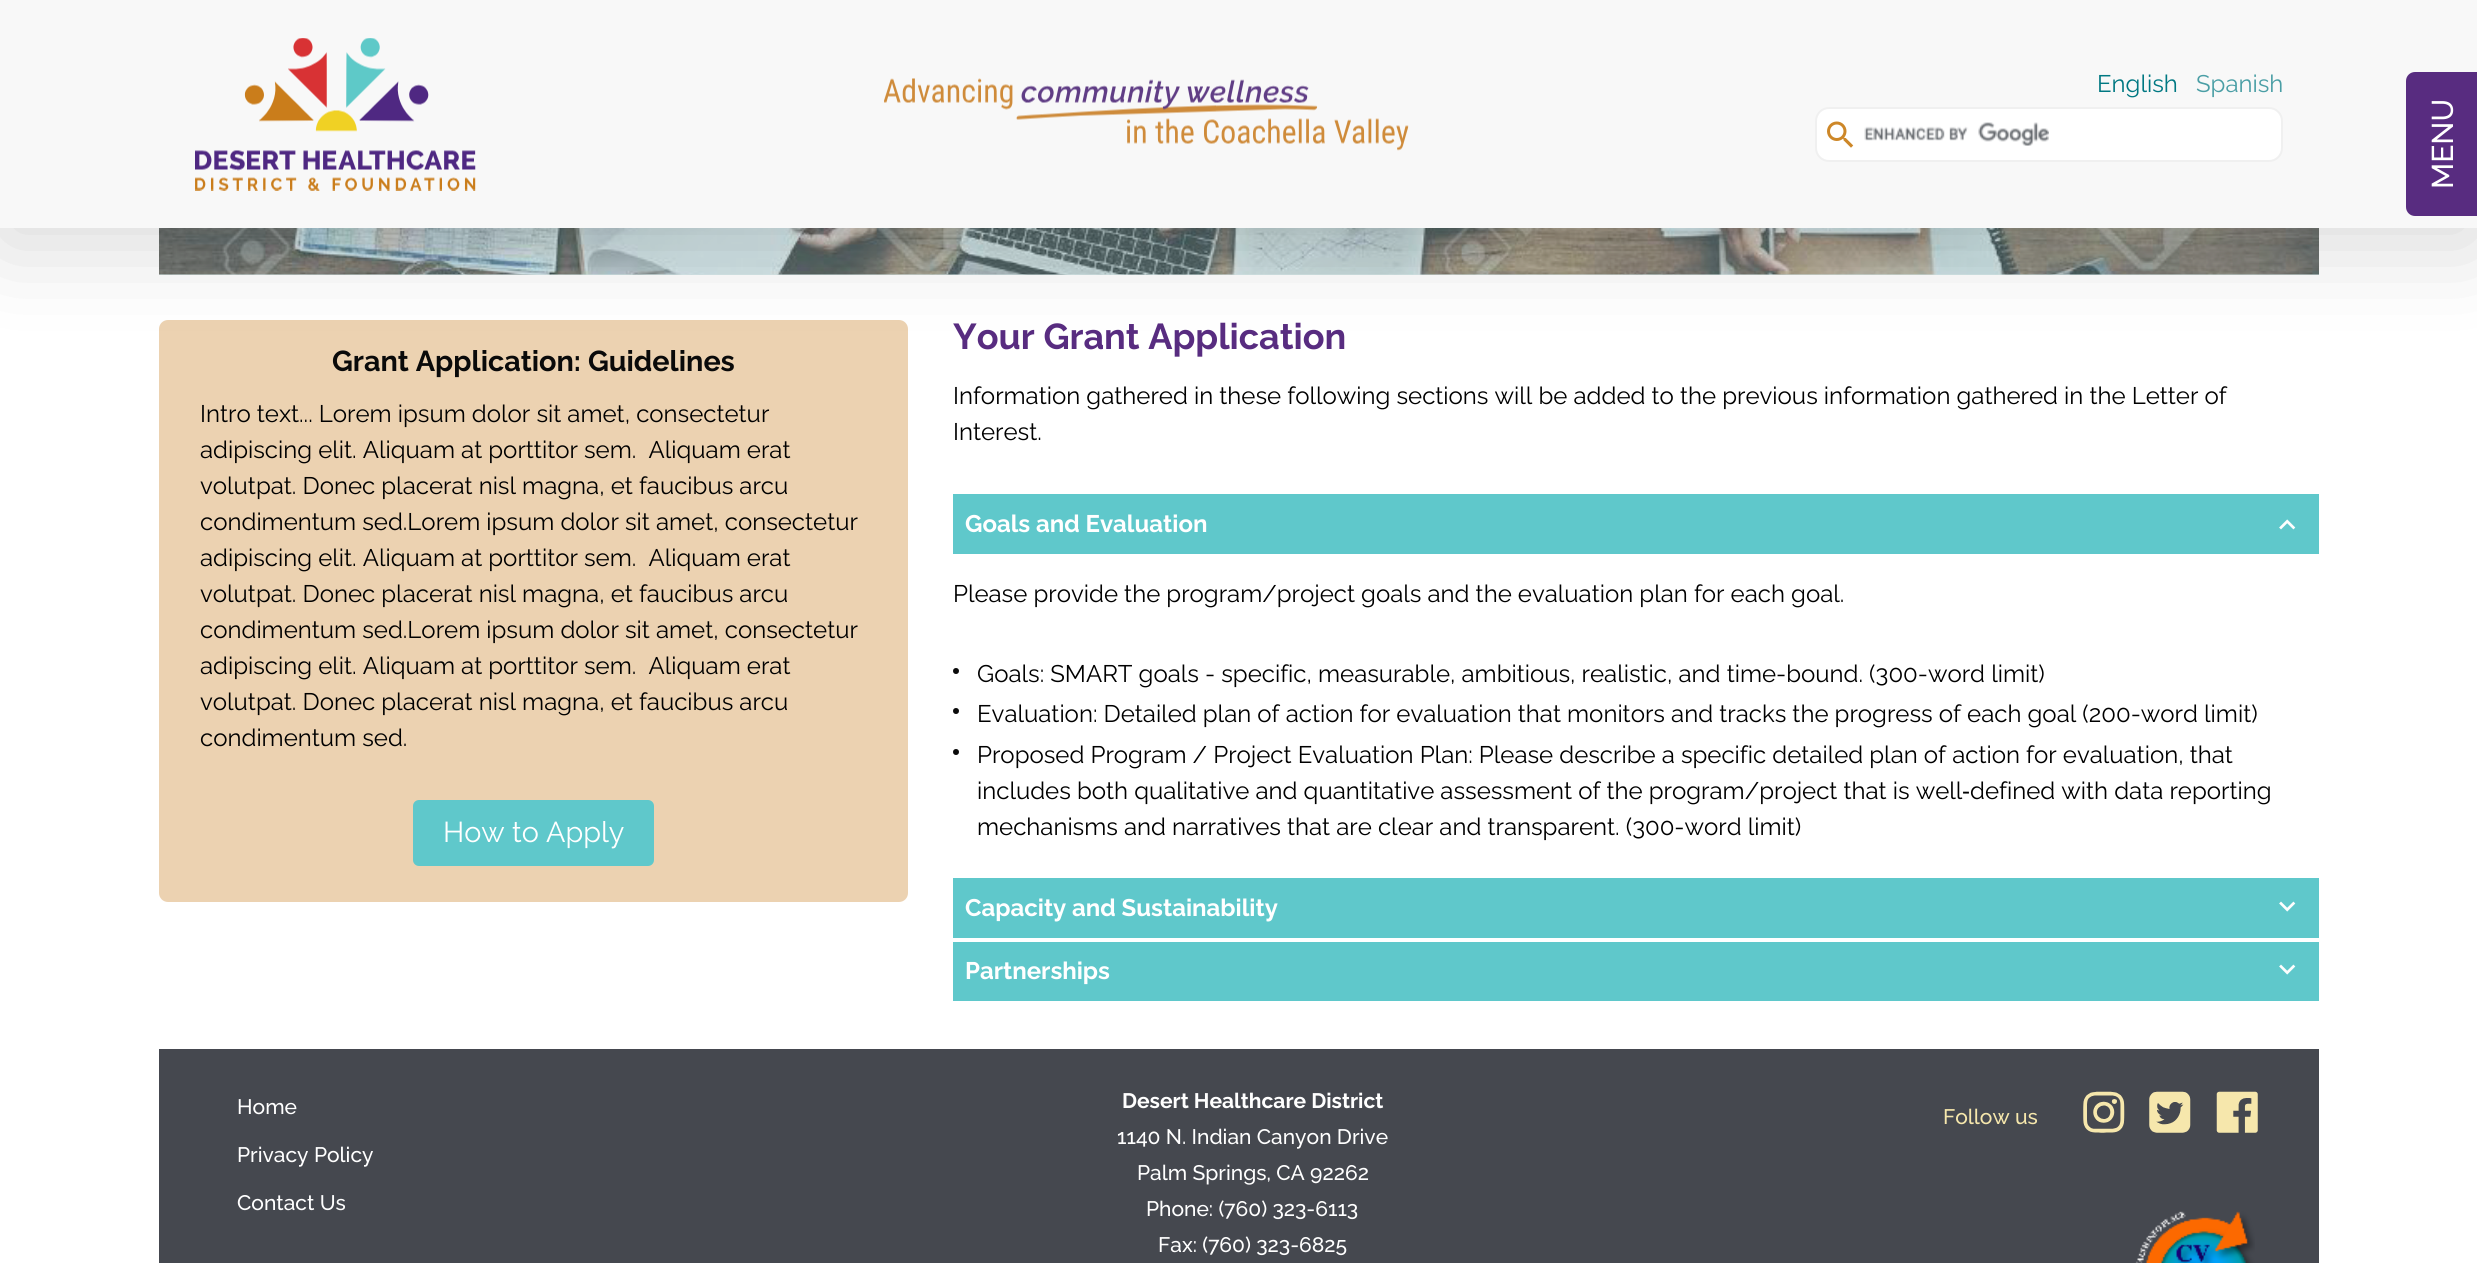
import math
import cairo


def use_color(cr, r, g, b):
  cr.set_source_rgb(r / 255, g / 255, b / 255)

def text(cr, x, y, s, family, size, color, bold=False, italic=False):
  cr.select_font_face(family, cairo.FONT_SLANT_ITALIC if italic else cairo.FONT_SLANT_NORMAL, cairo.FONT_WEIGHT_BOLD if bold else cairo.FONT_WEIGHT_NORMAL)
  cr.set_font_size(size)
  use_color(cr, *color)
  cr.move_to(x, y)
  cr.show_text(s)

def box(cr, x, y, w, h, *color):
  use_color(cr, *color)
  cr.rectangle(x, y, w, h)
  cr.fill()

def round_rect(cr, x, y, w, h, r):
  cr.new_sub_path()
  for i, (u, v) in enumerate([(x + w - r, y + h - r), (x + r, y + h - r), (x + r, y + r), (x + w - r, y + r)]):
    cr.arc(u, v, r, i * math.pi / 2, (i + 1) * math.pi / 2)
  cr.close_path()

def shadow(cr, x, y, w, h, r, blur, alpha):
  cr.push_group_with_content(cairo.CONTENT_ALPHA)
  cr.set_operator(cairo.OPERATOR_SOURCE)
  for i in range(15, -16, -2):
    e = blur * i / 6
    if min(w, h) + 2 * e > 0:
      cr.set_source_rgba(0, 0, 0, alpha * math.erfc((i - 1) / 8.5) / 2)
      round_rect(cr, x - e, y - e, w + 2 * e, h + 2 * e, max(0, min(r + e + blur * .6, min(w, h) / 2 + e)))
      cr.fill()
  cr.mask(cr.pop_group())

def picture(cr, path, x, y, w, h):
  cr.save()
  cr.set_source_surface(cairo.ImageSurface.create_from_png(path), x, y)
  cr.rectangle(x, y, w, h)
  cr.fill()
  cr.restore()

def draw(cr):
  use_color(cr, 255, 255, 255)
  cr.paint()
  box(cr, 159, 274, 2160, 1, 216, 234, 235)
  picture(cr, "img_05.png", 159, 228, 2160, 47)
  use_color(cr, 236, 210, 177)
  round_rect(cr, 159, 320, 749, 582, 9)
  cr.fill()
  use_color(cr, 0, 0, 0)
  shadow(cr, 0, 15, 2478, 228, 0, 48, 0.16)
  box(cr, 0, 0, 2477, 228, 248, 248, 248)
  picture(cr, "img_01.png", 195, 38, 281, 153)
  picture(cr, "img_02.png", 884, 78, 525, 73)
  use_color(cr, 255, 255, 255)
  round_rect(cr, 1816, 108, 466, 53, 13)
  cr.fill_preserve()
  use_color(cr, 240, 240, 240)
  cr.stroke()
  picture(cr, "img_03.png", 1827, 121, 27, 27)
  picture(cr, "img_04.png", 1864, 122, 185, 24)
  use_color(cr, 88, 44, 128)
  cr.new_path()
  cr.move_to(2406, 207)
  cr.line_to(2406, 81)
  cr.curve_to(2406, 76, 2410, 72, 2415, 72)
  cr.line_to(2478, 72)
  cr.line_to(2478, 216)
  cr.line_to(2415, 216)
  cr.curve_to(2410, 216, 2406, 212, 2406, 207)
  cr.close_path()
  cr.fill()
  use_color(cr, 95, 200, 203)
  round_rect(cr, 413, 800, 241, 66, 6)
  cr.fill()
  box(cr, 953, 494, 1366, 60, 95, 200, 203)
  picture(cr, "img_06.png", 2279, 519, 17, 11)
  use_color(cr, 10, 10, 10)
  cr.arc(956, 671, 3, 0, 2 * math.pi)
  cr.fill()
  cr.arc(956, 711, 3, 0, 2 * math.pi)
  cr.fill()
  cr.arc(956, 752, 3, 0, 2 * math.pi)
  cr.fill()
  box(cr, 953, 878, 1366, 60, 95, 200, 203)
  picture(cr, "img_07.png", 2279, 901, 17, 11)
  box(cr, 953, 942, 1366, 59, 95, 200, 203)
  picture(cr, "img_07.png", 2279, 964, 17, 11)
  box(cr, 159, 1049, 2160, 214, 69, 72, 79)
  picture(cr, "img_08.png", 2083, 1091, 42, 42)
  picture(cr, "img_09.png", 2149, 1091, 42, 42)
  picture(cr, "img_10.png", 2216, 1091, 42, 42)
  picture(cr, "img_11.png", 2135, 1211, 120, 52)
  text(cr, 2097, 92, "English", "Raleway", 24, (0, 120, 130))
  text(cr, 2196, 92, "Spanish", "Raleway", 24, (74, 158, 165))
  cr.save()
  cr.translate(2453, 189)
  cr.rotate(-90 * math.pi / 180)
  text(cr, 0, 0, "MENU", "Raleway Medium", 30, (255, 255, 255))
  cr.restore()
  text(cr, 332, 371, "Grant Application: Guidelines", "Raleway", 28.75, (10, 10, 10), bold=True)
  text(cr, 200, 422, "Intro text... Lorem ipsum dolor sit amet, consectetur", "Raleway", 24, (0, 0, 0))
  text(cr, 200, 458, "adipiscing elit. Aliquam at porttitor sem.  Aliquam erat", "Raleway", 24, (0, 0, 0))
  text(cr, 200, 494, "volutpat. Donec placerat nisl magna, et faucibus arcu", "Raleway", 24, (0, 0, 0))
  text(cr, 200, 530, "condimentum sed.Lorem ipsum dolor sit amet, consectetur", "Raleway", 24, (0, 0, 0))
  text(cr, 200, 566, "adipiscing elit. Aliquam at porttitor sem.  Aliquam erat", "Raleway", 24, (0, 0, 0))
  text(cr, 200, 602, "volutpat. Donec placerat nisl magna, et faucibus arcu", "Raleway", 24, (0, 0, 0))
  text(cr, 200, 638, "condimentum sed.Lorem ipsum dolor sit amet, consectetur", "Raleway", 24, (0, 0, 0))
  text(cr, 200, 674, "adipiscing elit. Aliquam at porttitor sem.  Aliquam erat", "Raleway", 24, (0, 0, 0))
  text(cr, 200, 710, "volutpat. Donec placerat nisl magna, et faucibus arcu", "Raleway", 24, (0, 0, 0))
  text(cr, 200, 746, "condimentum sed.", "Raleway", 24, (0, 0, 0))
  text(cr, 443, 842, "How to Apply", "Raleway", 28.75, (255, 255, 255))
  text(cr, 953, 349, "Your Grant Application", "Raleway", 36, (88, 44, 128), bold=True)
  text(cr, 953, 404, "Information gathered in these following sections will be added to the previous information gathered in the Letter of", "Raleway", 24, (0, 0, 0))
  text(cr, 953, 440, "Interest.", "Raleway", 24, (0, 0, 0))
  text(cr, 965, 532, "Goals and Evaluation", "Raleway", 24, (255, 255, 255), bold=True)
  text(cr, 953, 602, "Please provide the program/project goals and the evaluation plan for each goal.", "Raleway", 24, (0, 0, 0))
  text(cr, 977, 682, "Goals: SMART goals - specific, measurable, ambitious, realistic, and time-bound. (300-word limit)", "Raleway", 24, (0, 0, 0))
  text(cr, 977, 722, "Evaluation: Detailed plan of action for evaluation that monitors and tracks the progress of each goal (200-word limit)", "Raleway", 24, (0, 0, 0))
  text(cr, 977, 763, "Proposed Program / Project Evaluation Plan: Please describe a specific detailed plan of action for evaluation, that", "Raleway", 24, (0, 0, 0))
  text(cr, 977, 799, "includes both qualitative and quantitative assessment of the program/project that is well", "Raleway", 24, (0, 0, 0))
  text(cr, 1962, 799, "‐", "Liberation Sans", 24, (0, 0, 0))
  text(cr, 1970, 799, "defined with data reporting", "Raleway", 24, (0, 0, 0))
  text(cr, 977, 835, "mechanisms and narratives that are clear and transparent. (300-word limit)", "Raleway", 24, (0, 0, 0))
  text(cr, 965, 916, "Capacity and Sustainability", "Raleway", 24, (255, 255, 255), bold=True)
  text(cr, 965, 979, "Partnerships", "Raleway", 24, (255, 255, 255), bold=True)
  text(cr, 237, 1114, "Home", "Raleway Medium", 21, (255, 255, 255))
  text(cr, 237, 1162, "Privacy Policy", "Raleway Medium", 21, (255, 255, 255))
  text(cr, 237, 1210, "Contact Us", "Raleway Medium", 21, (255, 255, 255))
  text(cr, 1122, 1108, "Desert Healthcare District", "Raleway", 21, (255, 255, 255), bold=True)
  text(cr, 1117, 1144, "1140 N. Indian Canyon Drive", "Raleway Medium", 21, (255, 255, 255))
  text(cr, 1137, 1180, "Palm Springs, CA 92262", "Raleway Medium", 21, (255, 255, 255))
  text(cr, 1146, 1216, "Phone: (760) 323-6113", "Raleway Medium", 21, (255, 255, 255))
  text(cr, 1158, 1252, "Fax: (760) 323-6825", "Raleway Medium", 21, (255, 255, 255))
  text(cr, 1943, 1124, "Follow us", "Raleway Medium", 21, (246, 231, 172))


surface = cairo.ImageSurface(cairo.FORMAT_RGB24, 2477, 1263)
cr = cairo.Context(surface)
options = cairo.FontOptions()
options.set_hint_metrics(cairo.HINT_METRICS_OFF)
options.set_hint_style(cairo.HINT_STYLE_NONE)
cr.set_font_options(options)
cr.set_miter_limit(4)
draw(cr)
surface.write_to_png("out.png")
